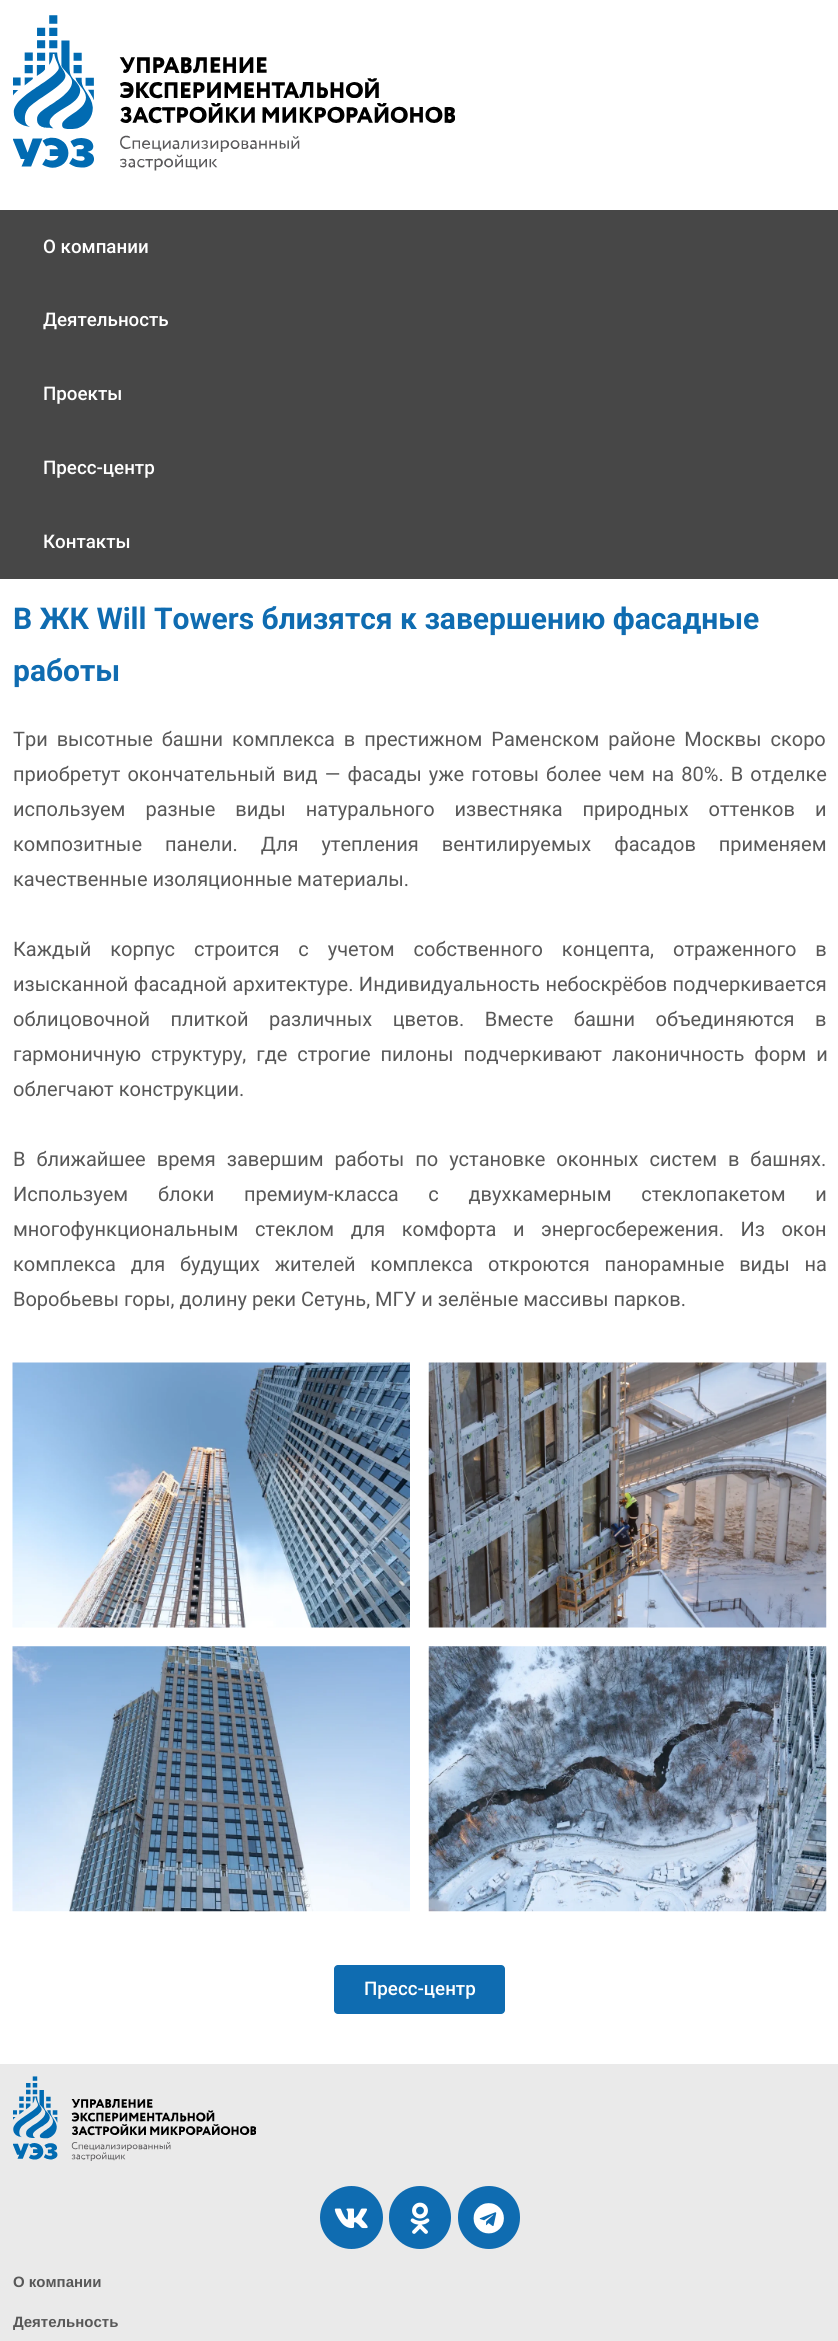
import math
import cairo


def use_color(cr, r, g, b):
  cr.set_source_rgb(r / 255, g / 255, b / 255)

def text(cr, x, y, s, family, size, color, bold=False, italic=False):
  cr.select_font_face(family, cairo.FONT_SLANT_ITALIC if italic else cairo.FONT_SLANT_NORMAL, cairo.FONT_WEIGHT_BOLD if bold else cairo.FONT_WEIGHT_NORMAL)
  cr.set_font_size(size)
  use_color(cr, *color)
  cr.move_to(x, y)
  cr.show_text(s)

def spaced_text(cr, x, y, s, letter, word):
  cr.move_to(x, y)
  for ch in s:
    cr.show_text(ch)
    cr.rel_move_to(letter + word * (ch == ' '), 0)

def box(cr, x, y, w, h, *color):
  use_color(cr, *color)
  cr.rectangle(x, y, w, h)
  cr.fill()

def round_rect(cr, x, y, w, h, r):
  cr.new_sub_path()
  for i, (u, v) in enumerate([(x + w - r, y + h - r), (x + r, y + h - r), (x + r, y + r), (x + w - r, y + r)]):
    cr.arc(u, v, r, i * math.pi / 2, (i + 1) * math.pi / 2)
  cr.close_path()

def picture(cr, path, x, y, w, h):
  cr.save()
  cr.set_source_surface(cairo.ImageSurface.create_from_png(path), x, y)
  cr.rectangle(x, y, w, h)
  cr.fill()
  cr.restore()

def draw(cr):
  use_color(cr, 255, 255, 255)
  cr.paint()
  picture(cr, "img_01.png", 13, 15, 442, 156)
  box(cr, 0, 210, 838, 369, 71, 71, 71)
  picture(cr, "img_02.png", 12, 1362, 398, 266)
  picture(cr, "img_03.png", 428, 1362, 399, 266)
  picture(cr, "img_04.png", 12, 1646, 398, 266)
  picture(cr, "img_05.png", 428, 1646, 399, 266)
  use_color(cr, 15, 108, 177)
  round_rect(cr, 334, 1965, 171, 49, 4)
  cr.fill()
  box(cr, 0, 2064, 838, 277, 234, 234, 234)
  picture(cr, "img_06.png", 13, 2076, 243, 85)
  use_color(cr, 15, 108, 177)
  cr.arc(351.5, 2217.5, 31.5, 0, 2 * math.pi)
  cr.fill()
  picture(cr, "img_07.png", 334, 2208, 34, 21)
  round_rect(cr, 389, 2186, 62, 63, 31)
  cr.fill()
  picture(cr, "img_08.png", 410, 2202, 20, 32)
  round_rect(cr, 458, 2186, 62, 63, 31)
  cr.fill()
  picture(cr, "img_09.png", 473, 2203, 31, 31)
  text(cr, 43, 253, "О компании", "Roboto Medium", 18.75, (255, 255, 255))
  text(cr, 43, 326, "Деятельность", "Roboto Medium", 18.75, (255, 255, 255))
  text(cr, 43, 400, "Проекты", "Roboto Medium", 18.75, (255, 255, 255))
  text(cr, 43, 474, "Пресс-центр", "Roboto Medium", 18.75, (255, 255, 255))
  text(cr, 43, 548, "Контакты", "Roboto Medium", 18.75, (255, 255, 255))
  text(cr, 13, 629, "В ЖК Will Towers близятся к завершению фасадные", "Roboto", 30, (15, 108, 177), bold=True)
  text(cr, 13, 681, "работы", "Roboto", 30, (15, 108, 177), bold=True)
  cr.select_font_face("Roboto")
  cr.set_font_size(20)
  use_color(cr, 88, 88, 88)
  spaced_text(cr, 13, 746, "Три высотные башни комплекса в престижном Раменском районе Москвы скоро", 0, 4)
  spaced_text(cr, 13, 781, "приобретут окончательный вид — фасады уже готовы более чем на 80%. В отделке", 0, 2.1)
  spaced_text(cr, 13, 816, "используем разные виды натурального известняка природных оттенков и", 0, 15)
  spaced_text(cr, 13, 851, "композитные панели. Для утепления вентилируемых фасадов применяем", 0, 18)
  text(cr, 13, 886, "качественные изоляционные материалы.", "Roboto", 20, (88, 88, 88))
  spaced_text(cr, 13, 956, "Каждый корпус строится с учетом собственного концепта, отраженного в", 0, 14)
  spaced_text(cr, 13, 991, "изысканной фасадной архитектуре. Индивидуальность небоскрёбов подчеркивается", 0, 0.5)
  spaced_text(cr, 13, 1026, "облицовочной плиткой различных цветов. Вместе башни объединяются в", 0, 15.5)
  spaced_text(cr, 13, 1061, "гармоничную структуру, где строгие пилоны подчеркивают лаконичность форм и", 0, 5)
  text(cr, 13, 1096, "облегчают конструкции.", "Roboto", 20, (88, 88, 88))
  spaced_text(cr, 13, 1166, "В ближайшее время завершим работы по установке оконных систем в башнях.", 0, 6)
  spaced_text(cr, 13, 1201, "Используем блоки премиум-класса с двухкамерным стеклопакетом и", 0, 24.75)
  spaced_text(cr, 13, 1236, "многофункциональным стеклом для комфорта и энергосбережения. Из окон", 0, 11.5)
  spaced_text(cr, 13, 1271, "комплекса для будущих жителей комплекса откроются панорамные виды на", 0, 9.75)
  text(cr, 13, 1306, "Воробьевы горы, долину реки Сетунь, МГУ и зелёные массивы парков.", "Roboto", 20, (88, 88, 88))
  text(cr, 364, 1995, "Пресс-центр", "Roboto Medium", 18.75, (255, 255, 255))
  text(cr, 13, 2287, "О компании", "Liberation Sans", 15, (88, 88, 88), bold=True)
  text(cr, 13, 2327, "Деятельность", "Liberation Sans", 15, (88, 88, 88), bold=True)


surface = cairo.ImageSurface(cairo.FORMAT_RGB24, 838, 2341)
cr = cairo.Context(surface)
options = cairo.FontOptions()
options.set_hint_metrics(cairo.HINT_METRICS_OFF)
options.set_hint_style(cairo.HINT_STYLE_NONE)
cr.set_font_options(options)
cr.set_miter_limit(4)
draw(cr)
surface.write_to_png("out.png")
